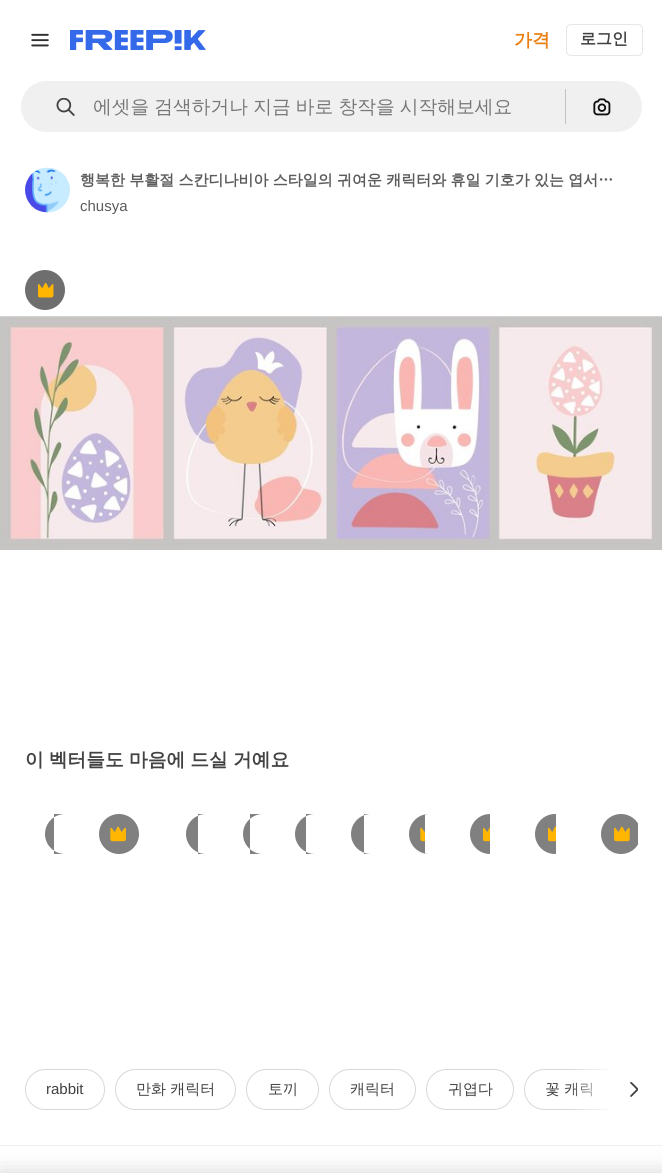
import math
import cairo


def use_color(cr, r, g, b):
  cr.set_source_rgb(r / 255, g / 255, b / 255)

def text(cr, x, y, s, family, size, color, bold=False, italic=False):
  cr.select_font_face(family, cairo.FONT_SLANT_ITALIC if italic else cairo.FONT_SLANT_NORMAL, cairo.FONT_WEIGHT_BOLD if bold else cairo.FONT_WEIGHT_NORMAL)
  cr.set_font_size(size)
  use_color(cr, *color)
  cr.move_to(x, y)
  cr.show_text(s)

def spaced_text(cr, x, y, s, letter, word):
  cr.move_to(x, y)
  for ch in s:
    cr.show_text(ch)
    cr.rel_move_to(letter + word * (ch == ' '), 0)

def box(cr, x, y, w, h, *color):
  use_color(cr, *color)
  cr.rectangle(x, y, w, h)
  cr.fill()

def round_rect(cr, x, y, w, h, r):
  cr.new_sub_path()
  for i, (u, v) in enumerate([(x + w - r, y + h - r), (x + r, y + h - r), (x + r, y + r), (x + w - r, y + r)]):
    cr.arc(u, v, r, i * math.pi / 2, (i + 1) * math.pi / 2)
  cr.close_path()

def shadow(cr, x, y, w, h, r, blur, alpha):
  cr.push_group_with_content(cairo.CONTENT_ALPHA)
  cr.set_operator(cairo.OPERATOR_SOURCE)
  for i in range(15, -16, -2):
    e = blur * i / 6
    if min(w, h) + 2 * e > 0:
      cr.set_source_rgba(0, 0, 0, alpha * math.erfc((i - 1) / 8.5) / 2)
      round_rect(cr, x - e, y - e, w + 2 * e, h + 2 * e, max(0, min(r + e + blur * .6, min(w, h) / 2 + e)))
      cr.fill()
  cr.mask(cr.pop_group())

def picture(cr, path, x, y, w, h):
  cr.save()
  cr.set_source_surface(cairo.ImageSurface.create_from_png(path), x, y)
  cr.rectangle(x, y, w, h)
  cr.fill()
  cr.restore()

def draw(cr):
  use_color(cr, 255, 255, 255)
  cr.paint()
  picture(cr, "img_01.png", 31, 33, 18, 14)
  picture(cr, "img_02.png", 70, 30, 136, 20)
  round_rect(cr, 566.5, 24.5, 76, 31, 4.5)
  use_color(cr, 231, 231, 231)
  cr.set_line_width(1)
  cr.stroke()
  use_color(cr, 240, 240, 240)
  round_rect(cr, 20.5, 80.5, 622, 52, 26)
  cr.fill_preserve()
  use_color(cr, 255, 255, 255)
  cr.stroke()
  picture(cr, "img_03.png", 56, 98, 19, 18)
  box(cr, 565, 89, 1, 35, 195, 195, 195)
  picture(cr, "img_04.png", 593, 98, 18, 18)
  picture(cr, "img_05.png", 25, 167, 45, 46)
  use_color(cr, 110, 110, 110)
  cr.arc(45, 290, 20, 0, 2 * math.pi)
  cr.fill()
  picture(cr, "img_06.png", 38, 283, 16, 15)
  picture(cr, "img_07.png", 0, 316, 662, 234)
  use_color(cr, 128, 128, 128)
  cr.new_path()
  cr.move_to(65, 814)
  cr.line_to(54, 814)
  cr.line_to(54, 854)
  cr.line_to(65, 854)
  cr.curve_to(54, 854, 45, 845, 45, 834)
  cr.curve_to(45, 823, 54, 814, 65, 814)
  cr.close_path()
  cr.fill()
  cr.arc(119, 834, 20, 0, 2 * math.pi)
  cr.fill()
  picture(cr, "img_08.png", 110, 826, 16, 16)
  cr.new_path()
  cr.move_to(206, 814)
  cr.line_to(198, 814)
  cr.line_to(198, 854)
  cr.line_to(206, 854)
  cr.curve_to(195, 854, 186, 845, 186, 834)
  cr.curve_to(186, 823, 195, 814, 206, 814)
  cr.close_path()
  cr.fill()
  cr.new_path()
  cr.move_to(263, 814)
  cr.line_to(250, 814)
  cr.line_to(250, 854)
  cr.line_to(263, 854)
  cr.curve_to(252, 854, 243, 845, 243, 834)
  cr.curve_to(243, 823, 252, 814, 263, 814)
  cr.close_path()
  cr.fill()
  cr.new_path()
  cr.move_to(315, 814)
  cr.line_to(306, 814)
  cr.line_to(306, 854)
  cr.line_to(315, 854)
  cr.curve_to(304, 854, 295, 845, 295, 834)
  cr.curve_to(295, 823, 304, 814, 315, 814)
  cr.close_path()
  cr.fill()
  cr.new_path()
  cr.move_to(371, 814)
  cr.line_to(364, 814)
  cr.line_to(364, 854)
  cr.line_to(371, 854)
  cr.curve_to(360, 854, 351, 845, 351, 834)
  cr.curve_to(351, 823, 360, 814, 371, 814)
  cr.close_path()
  cr.fill()
  cr.new_path()
  cr.move_to(429, 814)
  cr.line_to(425, 814)
  cr.line_to(425, 854)
  cr.line_to(429, 854)
  cr.curve_to(418, 854, 409, 845, 409, 834)
  cr.curve_to(409, 823, 418, 814, 429, 814)
  cr.close_path()
  cr.fill()
  picture(cr, "img_09.png", 420, 827, 5, 15)
  cr.new_path()
  cr.move_to(490, 814)
  cr.line_to(490, 854)
  cr.curve_to(479, 854, 470, 845, 470, 834)
  cr.curve_to(470, 823, 479, 814, 490, 814)
  cr.close_path()
  cr.fill()
  picture(cr, "img_10.png", 483, 827, 7, 15)
  cr.save()
  round_rect(cr, 515, 794, 41, 250, 20)
  cr.clip()
  cr.arc(555, 834, 20, 0, 2 * math.pi)
  cr.fill()
  cr.restore()
  picture(cr, "img_11.png", 548, 826, 8, 16)
  cr.save()
  round_rect(cr, 581, 794, 57, 250, 20)
  cr.clip()
  cr.arc(621, 834, 20, 0, 2 * math.pi)
  cr.fill()
  cr.restore()
  picture(cr, "img_12.png", 614, 826, 16, 16)
  round_rect(cr, 25.5, 1069.5, 79, 40, 20)
  use_color(cr, 216, 216, 216)
  cr.stroke()
  round_rect(cr, 115.5, 1069.5, 120, 40, 20)
  cr.stroke()
  round_rect(cr, 246.5, 1069.5, 72, 40, 20)
  cr.stroke()
  round_rect(cr, 329.5, 1069.5, 86, 40, 20)
  cr.stroke()
  round_rect(cr, 426.5, 1069.5, 87, 40, 20)
  cr.stroke()
  round_rect(cr, 524.5, 1069.5, 106, 40, 20)
  cr.stroke()
  box(cr, 613, 1069, 18, 41, 255, 255, 255)
  picture(cr, "img_13.png", 630, 1081, 8, 16)
  box(cr, 0, 1145, 662, 1, 240, 240, 240)
  use_color(cr, 0, 0, 0)
  shadow(cr, 0, 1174, 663, 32, 0, 11, 0.2)
  text(cr, 514, 46, "가격", "WenQuanYi Zen Hei", 18, (234, 126, 17), bold=True)
  text(cr, 580, 44, "로그인", "WenQuanYi Zen Hei", 16, (66, 66, 66), bold=True)
  cr.select_font_face("WenQuanYi Zen Hei Medium")
  cr.set_font_size(18.75)
  use_color(cr, 119, 119, 119)
  spaced_text(cr, 93, 113, "에셋을 검색하거나 지금 바로 창작을 시작해보세요", 0, -0.5)
  cr.select_font_face("WenQuanYi Zen Hei", cairo.FONT_SLANT_NORMAL, cairo.FONT_WEIGHT_BOLD)
  cr.set_font_size(15)
  use_color(cr, 92, 92, 92)
  spaced_text(cr, 80, 185, "행복한 부활절 스칸디나비아 스타일의 귀여운 캐릭터와 휴일 기호가 있는 엽서…", 0, -0.25)
  text(cr, 80, 211, "chusya", "Liberation Sans", 15, (92, 92, 92))
  cr.select_font_face("WenQuanYi Zen Hei", cairo.FONT_SLANT_NORMAL, cairo.FONT_WEIGHT_BOLD)
  cr.set_font_size(18.75)
  use_color(cr, 66, 66, 66)
  spaced_text(cr, 25, 766, "이 벡터들도 마음에 드실 거예요", 0, -0.5)
  text(cr, 46, 1094, "rabbit", "Liberation Sans", 15, (66, 66, 66))
  cr.select_font_face("WenQuanYi Zen Hei Medium")
  spaced_text(cr, 136, 1094, "만화 캐릭터", 0, -0.25)
  text(cr, 268, 1094, "토끼", "WenQuanYi Zen Hei Medium", 15, (66, 66, 66))
  text(cr, 350, 1094, "캐릭터", "WenQuanYi Zen Hei Medium", 15, (66, 66, 66))
  text(cr, 448, 1094, "귀엽다", "WenQuanYi Zen Hei Medium", 15, (66, 66, 66))
  spaced_text(cr, 545, 1094, "꽃 캐릭", 0, -0.25)
  gradient = cairo.LinearGradient(613, 1089, 569, 1089)
  gradient.add_color_stop_rgba(0, 1, 1, 1, 1)
  gradient.add_color_stop_rgba(1, 1, 1, 1, 0)
  cr.set_source(gradient)
  cr.rectangle(570, 1069, 43, 41)
  cr.fill()


surface = cairo.ImageSurface(cairo.FORMAT_RGB24, 662, 1173)
cr = cairo.Context(surface)
options = cairo.FontOptions()
options.set_hint_metrics(cairo.HINT_METRICS_OFF)
options.set_hint_style(cairo.HINT_STYLE_NONE)
cr.set_font_options(options)
cr.set_miter_limit(4)
draw(cr)
surface.write_to_png("out.png")
